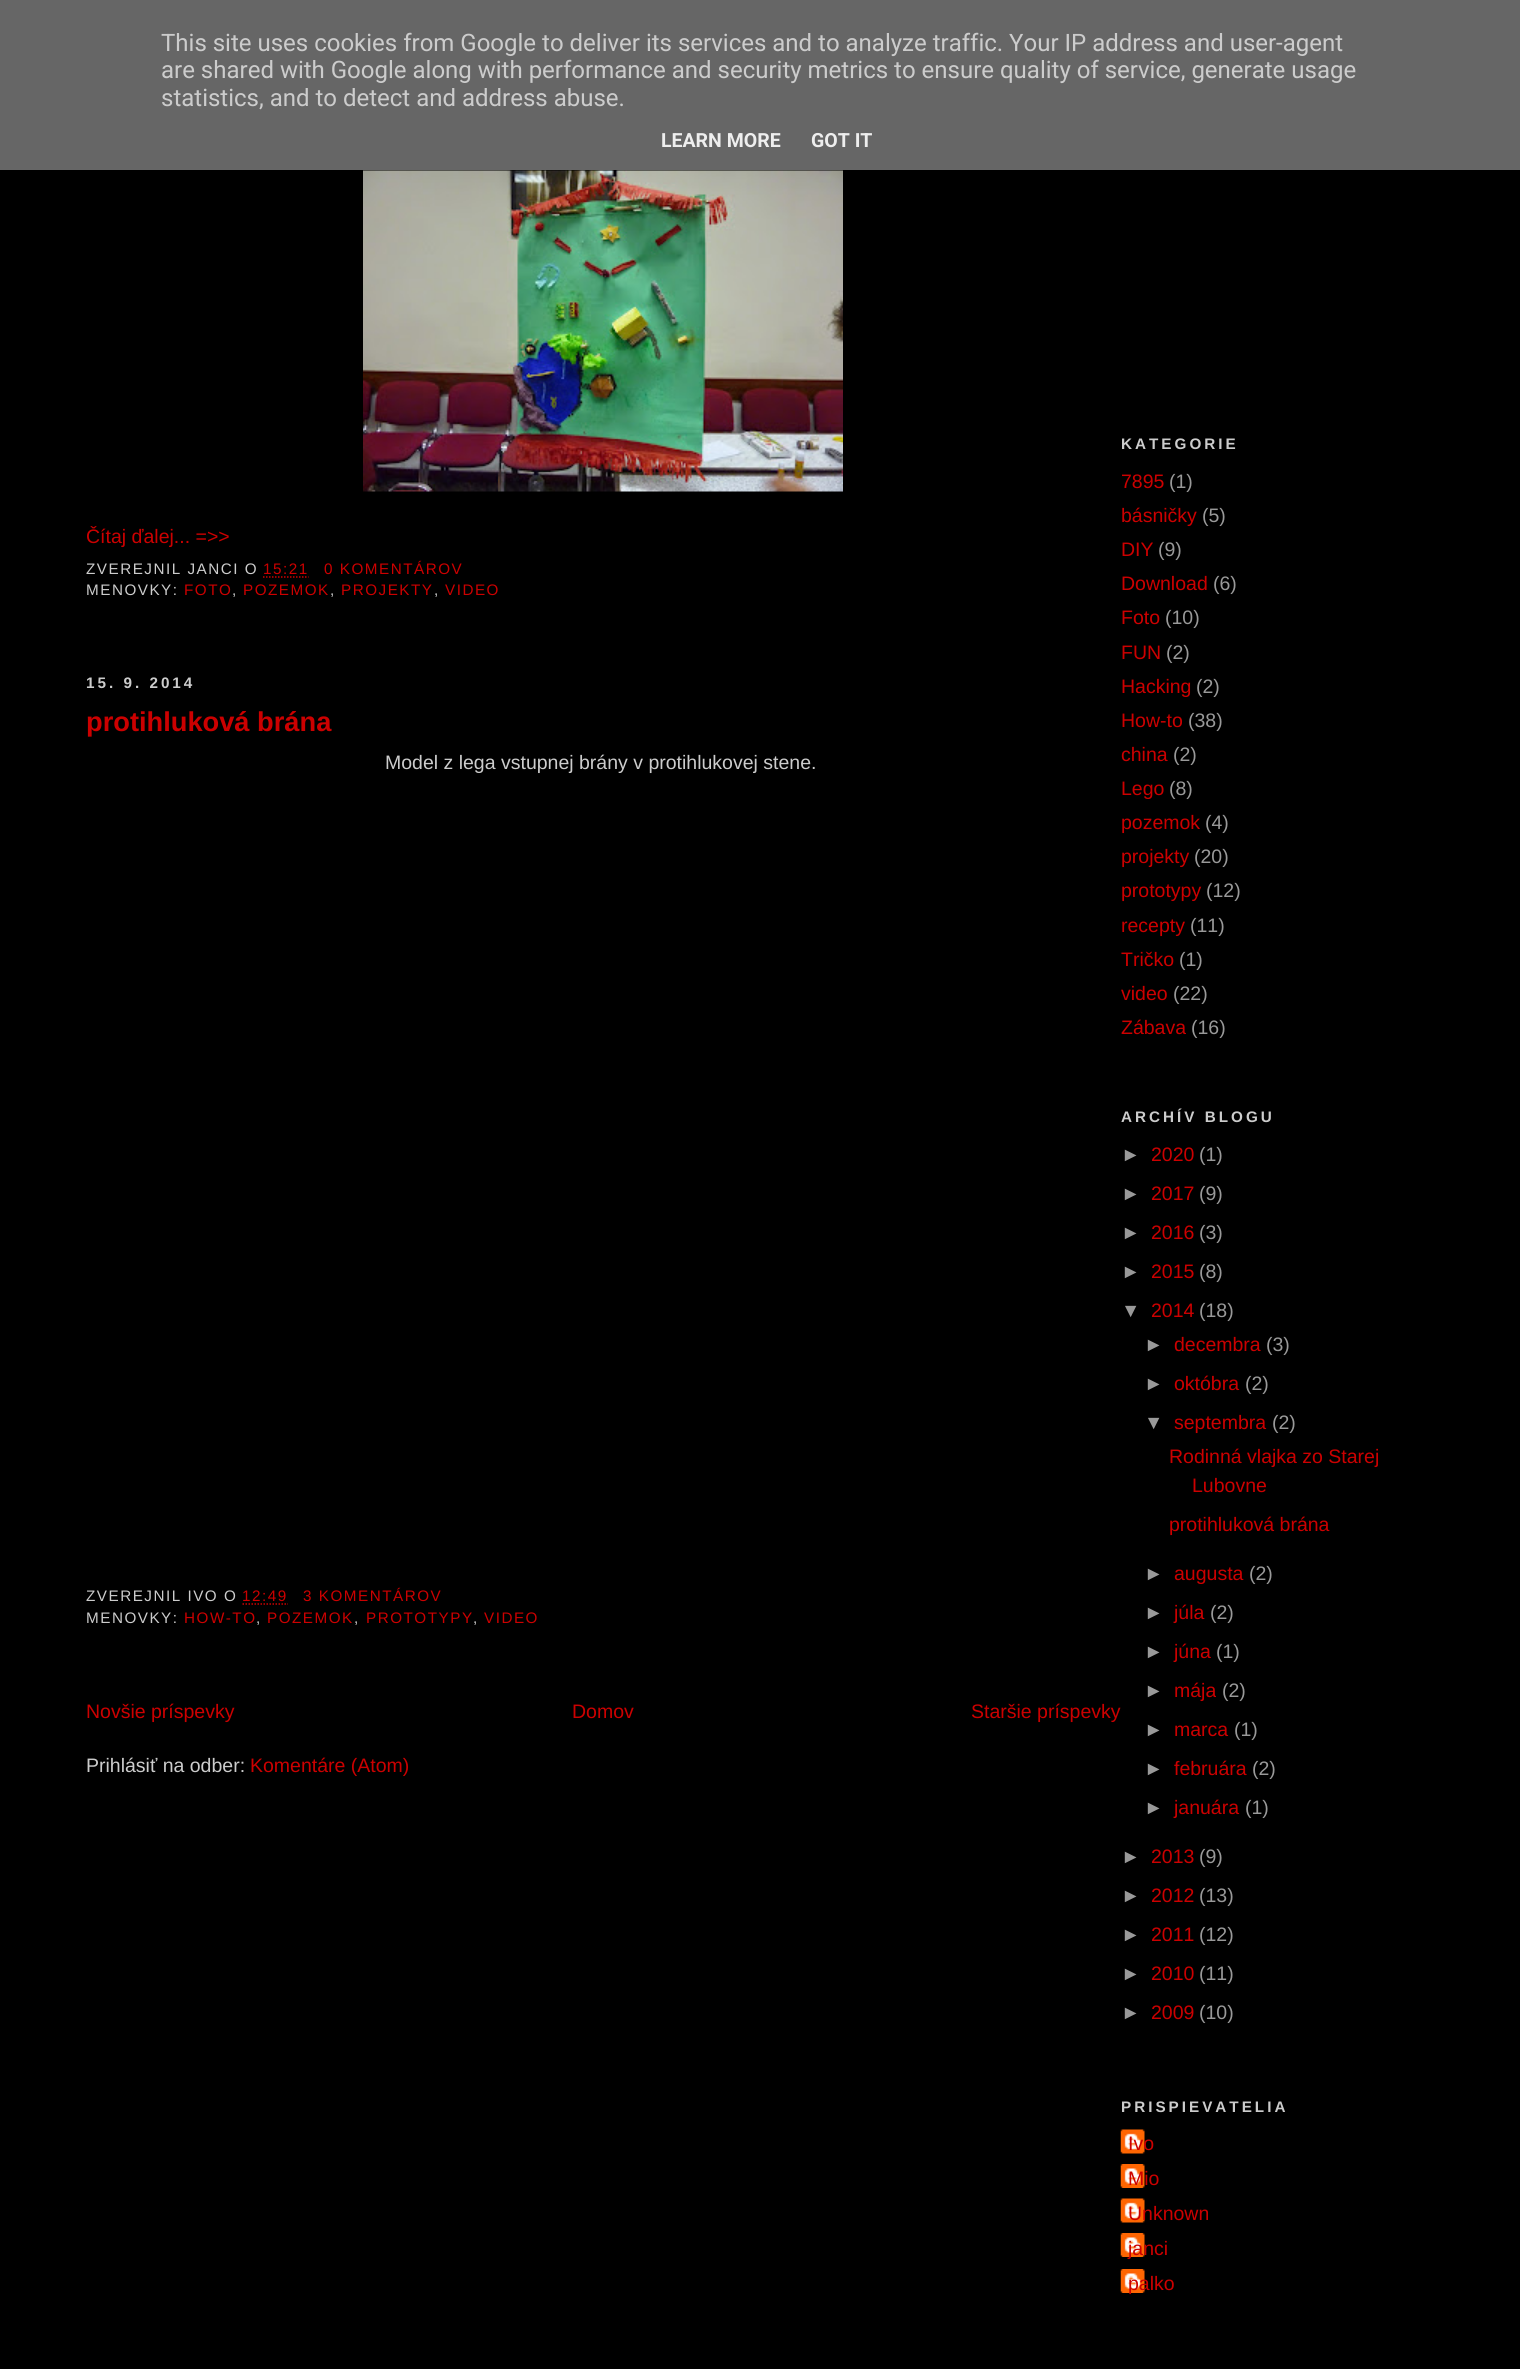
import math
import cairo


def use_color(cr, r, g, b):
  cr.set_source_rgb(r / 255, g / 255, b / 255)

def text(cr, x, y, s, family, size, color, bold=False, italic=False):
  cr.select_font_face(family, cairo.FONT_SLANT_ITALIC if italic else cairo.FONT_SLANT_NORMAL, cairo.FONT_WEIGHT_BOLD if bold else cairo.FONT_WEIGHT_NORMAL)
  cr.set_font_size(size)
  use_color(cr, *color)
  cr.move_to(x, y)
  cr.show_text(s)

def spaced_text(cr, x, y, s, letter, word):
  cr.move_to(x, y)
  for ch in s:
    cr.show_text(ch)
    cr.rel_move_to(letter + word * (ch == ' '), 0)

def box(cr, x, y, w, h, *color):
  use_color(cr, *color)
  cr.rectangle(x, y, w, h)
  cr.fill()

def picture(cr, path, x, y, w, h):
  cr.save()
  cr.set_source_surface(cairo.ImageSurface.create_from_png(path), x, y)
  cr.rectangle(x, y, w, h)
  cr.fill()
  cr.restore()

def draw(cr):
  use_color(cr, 0, 0, 0)
  cr.paint()
  box(cr, 0, 0, 1520, 170, 102, 102, 102)
  picture(cr, "img_01.png", 363, 170, 480, 322)
  cr.new_path()
  cr.move_to(263, 577)
  cr.line_to(308.5, 577)
  use_color(cr, 204, 0, 0)
  cr.set_line_width(1.5)
  cr.set_dash([1.5, 1.5])
  cr.stroke()
  cr.new_path()
  cr.move_to(242.5, 1604)
  cr.line_to(288, 1604)
  cr.stroke()
  picture(cr, "img_02.png", 1120, 2129, 25, 25)
  picture(cr, "img_03.png", 1120, 2164, 25, 24)
  picture(cr, "img_02.png", 1120, 2198, 25, 25)
  picture(cr, "img_03.png", 1120, 2233, 25, 24)
  picture(cr, "img_03.png", 1120, 2269, 25, 24)
  text(cr, 161, 51, "This site uses cookies from Google to deliver its services and to analyze traffic. Your IP address and user-agent", "Roboto", 24, (204, 204, 204))
  text(cr, 161, 78, "are shared with Google along with performance and security metrics to ensure quality of service, generate usage", "Roboto", 24, (204, 204, 204))
  text(cr, 161, 106, "statistics, and to detect and address abuse.", "Roboto", 24, (204, 204, 204))
  text(cr, 661, 147, "LEARN MORE", "Roboto", 19.5, (238, 238, 238), bold=True)
  text(cr, 811, 147, "GOT IT", "Roboto", 19.5, (238, 238, 238), bold=True)
  text(cr, 86, 543, "Čítaj ďalej... =>>", "Liberation Sans", 19.5, (204, 0, 0))
  cr.set_font_size(15.25)
  use_color(cr, 204, 204, 204)
  spaced_text(cr, 86, 574, "ZVEREJNIL JANCI O", 1.5, 0)
  use_color(cr, 204, 0, 0)
  spaced_text(cr, 263, 574, "15:21", 1.5, 0)
  spaced_text(cr, 324, 574, "0 KOMENTÁROV", 1.5, 0)
  use_color(cr, 204, 204, 204)
  spaced_text(cr, 86, 595, "MENOVKY:", 1.5, 0)
  use_color(cr, 204, 0, 0)
  spaced_text(cr, 184, 595, "FOTO", 1.5, 0)
  use_color(cr, 204, 204, 204)
  spaced_text(cr, 232, 595, ",", 1.5, 0)
  use_color(cr, 204, 0, 0)
  spaced_text(cr, 243, 595, "POZEMOK", 1.5, 0)
  use_color(cr, 204, 204, 204)
  spaced_text(cr, 330, 595, ",", 1.5, 0)
  use_color(cr, 204, 0, 0)
  spaced_text(cr, 341, 595, "PROJEKTY", 1.5, 0)
  use_color(cr, 204, 204, 204)
  spaced_text(cr, 434, 595, ",", 1.5, 0)
  use_color(cr, 204, 0, 0)
  spaced_text(cr, 445, 595, "VIDEO", 1.5, 0)
  cr.select_font_face("Liberation Sans", cairo.FONT_SLANT_NORMAL, cairo.FONT_WEIGHT_BOLD)
  use_color(cr, 204, 204, 204)
  spaced_text(cr, 86, 688, "15. 9. 2014", 3, 0)
  text(cr, 86, 731, "protihluková brána", "Liberation Sans", 27.25, (204, 0, 0), bold=True)
  text(cr, 385, 769, "Model z lega vstupnej brány v protihlukovej stene.", "Liberation Sans", 19.5, (204, 204, 204))
  cr.set_font_size(15.25)
  spaced_text(cr, 86, 1601, "ZVEREJNIL IVO O", 1.5, 0)
  use_color(cr, 204, 0, 0)
  spaced_text(cr, 242, 1601, "12:49", 1.5, 0)
  spaced_text(cr, 303, 1601, "3 KOMENTÁROV", 1.5, 0)
  use_color(cr, 204, 204, 204)
  spaced_text(cr, 86, 1623, "MENOVKY:", 1.5, 0)
  use_color(cr, 204, 0, 0)
  spaced_text(cr, 184, 1623, "HOW-TO", 1.5, 0)
  use_color(cr, 204, 204, 204)
  spaced_text(cr, 256, 1623, ",", 1.5, 0)
  use_color(cr, 204, 0, 0)
  spaced_text(cr, 267, 1623, "POZEMOK", 1.5, 0)
  use_color(cr, 204, 204, 204)
  spaced_text(cr, 354, 1623, ",", 1.5, 0)
  use_color(cr, 204, 0, 0)
  spaced_text(cr, 366, 1623, "PROTOTYPY", 1.5, 0)
  use_color(cr, 204, 204, 204)
  spaced_text(cr, 473, 1623, ",", 1.5, 0)
  use_color(cr, 204, 0, 0)
  spaced_text(cr, 484, 1623, "VIDEO", 1.5, 0)
  text(cr, 86, 1718, "Novšie príspevky", "Liberation Sans", 19.5, (204, 0, 0))
  text(cr, 572, 1718, "Domov", "Liberation Sans", 19.5, (204, 0, 0))
  text(cr, 971, 1718, "Staršie príspevky", "Liberation Sans", 19.5, (204, 0, 0))
  text(cr, 86, 1772, "Prihlásiť na odber:", "Liberation Sans", 19.5, (204, 204, 204))
  text(cr, 250, 1772, "Komentáre (Atom)", "Liberation Sans", 19.5, (204, 0, 0))
  cr.select_font_face("Liberation Sans", cairo.FONT_SLANT_NORMAL, cairo.FONT_WEIGHT_BOLD)
  cr.set_font_size(15.25)
  use_color(cr, 204, 204, 204)
  spaced_text(cr, 1121, 449, "KATEGORIE", 3, 0)
  text(cr, 1121, 488, "7895", "Liberation Sans", 19.5, (204, 0, 0))
  text(cr, 1169, 488, "(1)", "Liberation Sans", 19.5, (153, 153, 153))
  text(cr, 1121, 522, "básničky", "Liberation Sans", 19.5, (204, 0, 0))
  text(cr, 1202, 522, "(5)", "Liberation Sans", 19.5, (153, 153, 153))
  text(cr, 1121, 556, "DIY", "Liberation Sans", 19.5, (204, 0, 0))
  text(cr, 1158, 556, "(9)", "Liberation Sans", 19.5, (153, 153, 153))
  text(cr, 1121, 590, "Download", "Liberation Sans", 19.5, (204, 0, 0))
  text(cr, 1213, 590, "(6)", "Liberation Sans", 19.5, (153, 153, 153))
  text(cr, 1121, 624, "Foto", "Liberation Sans", 19.5, (204, 0, 0))
  text(cr, 1165, 624, "(10)", "Liberation Sans", 19.5, (153, 153, 153))
  text(cr, 1121, 659, "FUN", "Liberation Sans", 19.5, (204, 0, 0))
  text(cr, 1166, 659, "(2)", "Liberation Sans", 19.5, (153, 153, 153))
  text(cr, 1121, 693, "Hacking", "Liberation Sans", 19.5, (204, 0, 0))
  text(cr, 1196, 693, "(2)", "Liberation Sans", 19.5, (153, 153, 153))
  text(cr, 1121, 727, "How-to", "Liberation Sans", 19.5, (204, 0, 0))
  text(cr, 1188, 727, "(38)", "Liberation Sans", 19.5, (153, 153, 153))
  text(cr, 1121, 761, "china", "Liberation Sans", 19.5, (204, 0, 0))
  text(cr, 1173, 761, "(2)", "Liberation Sans", 19.5, (153, 153, 153))
  text(cr, 1121, 795, "Lego", "Liberation Sans", 19.5, (204, 0, 0))
  text(cr, 1169, 795, "(8)", "Liberation Sans", 19.5, (153, 153, 153))
  text(cr, 1121, 829, "pozemok", "Liberation Sans", 19.5, (204, 0, 0))
  text(cr, 1205, 829, "(4)", "Liberation Sans", 19.5, (153, 153, 153))
  text(cr, 1121, 863, "projekty", "Liberation Sans", 19.5, (204, 0, 0))
  text(cr, 1194, 863, "(20)", "Liberation Sans", 19.5, (153, 153, 153))
  text(cr, 1121, 897, "prototypy", "Liberation Sans", 19.5, (204, 0, 0))
  text(cr, 1206, 897, "(12)", "Liberation Sans", 19.5, (153, 153, 153))
  text(cr, 1121, 932, "recepty", "Liberation Sans", 19.5, (204, 0, 0))
  text(cr, 1190, 932, "(11)", "Liberation Sans", 19.5, (153, 153, 153))
  text(cr, 1121, 966, "Tričko", "Liberation Sans", 19.5, (204, 0, 0))
  text(cr, 1179, 966, "(1)", "Liberation Sans", 19.5, (153, 153, 153))
  text(cr, 1121, 1000, "video", "Liberation Sans", 19.5, (204, 0, 0))
  text(cr, 1173, 1000, "(22)", "Liberation Sans", 19.5, (153, 153, 153))
  text(cr, 1121, 1034, "Zábava", "Liberation Sans", 19.5, (204, 0, 0))
  text(cr, 1191, 1034, "(16)", "Liberation Sans", 19.5, (153, 153, 153))
  cr.select_font_face("Liberation Sans", cairo.FONT_SLANT_NORMAL, cairo.FONT_WEIGHT_BOLD)
  cr.set_font_size(15.25)
  use_color(cr, 204, 204, 204)
  spaced_text(cr, 1121, 1122, "ARCHÍV BLOGU", 3, 0)
  text(cr, 1121, 1161, "►", "Liberation Sans", 19.5, (153, 153, 153))
  text(cr, 1151, 1161, "2020", "Liberation Sans", 19.5, (204, 0, 0))
  text(cr, 1199, 1161, "(1)", "Liberation Sans", 19.5, (153, 153, 153))
  text(cr, 1121, 1200, "►", "Liberation Sans", 19.5, (153, 153, 153))
  text(cr, 1151, 1200, "2017", "Liberation Sans", 19.5, (204, 0, 0))
  text(cr, 1199, 1200, "(9)", "Liberation Sans", 19.5, (153, 153, 153))
  text(cr, 1121, 1239, "►", "Liberation Sans", 19.5, (153, 153, 153))
  text(cr, 1151, 1239, "2016", "Liberation Sans", 19.5, (204, 0, 0))
  text(cr, 1199, 1239, "(3)", "Liberation Sans", 19.5, (153, 153, 153))
  text(cr, 1121, 1278, "►", "Liberation Sans", 19.5, (153, 153, 153))
  text(cr, 1151, 1278, "2015", "Liberation Sans", 19.5, (204, 0, 0))
  text(cr, 1199, 1278, "(8)", "Liberation Sans", 19.5, (153, 153, 153))
  text(cr, 1121, 1317, "▼", "Liberation Sans", 19.5, (153, 153, 153))
  text(cr, 1151, 1317, "2014", "Liberation Sans", 19.5, (204, 0, 0))
  text(cr, 1199, 1317, "(18)", "Liberation Sans", 19.5, (153, 153, 153))
  text(cr, 1144, 1351, "►", "Liberation Sans", 19.5, (153, 153, 153))
  text(cr, 1174, 1351, "decembra", "Liberation Sans", 19.5, (204, 0, 0))
  text(cr, 1266, 1351, "(3)", "Liberation Sans", 19.5, (153, 153, 153))
  text(cr, 1144, 1390, "►", "Liberation Sans", 19.5, (153, 153, 153))
  text(cr, 1174, 1390, "októbra", "Liberation Sans", 19.5, (204, 0, 0))
  text(cr, 1245, 1390, "(2)", "Liberation Sans", 19.5, (153, 153, 153))
  text(cr, 1144, 1429, "▼", "Liberation Sans", 19.5, (153, 153, 153))
  text(cr, 1174, 1429, "septembra", "Liberation Sans", 19.5, (204, 0, 0))
  text(cr, 1272, 1429, "(2)", "Liberation Sans", 19.5, (153, 153, 153))
  text(cr, 1169, 1463, "Rodinná vlajka zo Starej", "Liberation Sans", 19.5, (204, 0, 0))
  text(cr, 1192, 1492, "Lubovne", "Liberation Sans", 19.5, (204, 0, 0))
  text(cr, 1169, 1531, "protihluková brána", "Liberation Sans", 19.5, (204, 0, 0))
  text(cr, 1144, 1580, "►", "Liberation Sans", 19.5, (153, 153, 153))
  text(cr, 1174, 1580, "augusta", "Liberation Sans", 19.5, (204, 0, 0))
  text(cr, 1249, 1580, "(2)", "Liberation Sans", 19.5, (153, 153, 153))
  text(cr, 1144, 1619, "►", "Liberation Sans", 19.5, (153, 153, 153))
  text(cr, 1174, 1619, "júla", "Liberation Sans", 19.5, (204, 0, 0))
  text(cr, 1210, 1619, "(2)", "Liberation Sans", 19.5, (153, 153, 153))
  text(cr, 1144, 1658, "►", "Liberation Sans", 19.5, (153, 153, 153))
  text(cr, 1174, 1658, "júna", "Liberation Sans", 19.5, (204, 0, 0))
  text(cr, 1216, 1658, "(1)", "Liberation Sans", 19.5, (153, 153, 153))
  text(cr, 1144, 1697, "►", "Liberation Sans", 19.5, (153, 153, 153))
  text(cr, 1174, 1697, "mája", "Liberation Sans", 19.5, (204, 0, 0))
  text(cr, 1222, 1697, "(2)", "Liberation Sans", 19.5, (153, 153, 153))
  text(cr, 1144, 1736, "►", "Liberation Sans", 19.5, (153, 153, 153))
  text(cr, 1174, 1736, "marca", "Liberation Sans", 19.5, (204, 0, 0))
  text(cr, 1234, 1736, "(1)", "Liberation Sans", 19.5, (153, 153, 153))
  text(cr, 1144, 1775, "►", "Liberation Sans", 19.5, (153, 153, 153))
  text(cr, 1174, 1775, "februára", "Liberation Sans", 19.5, (204, 0, 0))
  text(cr, 1252, 1775, "(2)", "Liberation Sans", 19.5, (153, 153, 153))
  text(cr, 1144, 1814, "►", "Liberation Sans", 19.5, (153, 153, 153))
  text(cr, 1174, 1814, "januára", "Liberation Sans", 19.5, (204, 0, 0))
  text(cr, 1245, 1814, "(1)", "Liberation Sans", 19.5, (153, 153, 153))
  text(cr, 1121, 1863, "►", "Liberation Sans", 19.5, (153, 153, 153))
  text(cr, 1151, 1863, "2013", "Liberation Sans", 19.5, (204, 0, 0))
  text(cr, 1199, 1863, "(9)", "Liberation Sans", 19.5, (153, 153, 153))
  text(cr, 1121, 1902, "►", "Liberation Sans", 19.5, (153, 153, 153))
  text(cr, 1151, 1902, "2012", "Liberation Sans", 19.5, (204, 0, 0))
  text(cr, 1199, 1902, "(13)", "Liberation Sans", 19.5, (153, 153, 153))
  text(cr, 1121, 1941, "►", "Liberation Sans", 19.5, (153, 153, 153))
  text(cr, 1151, 1941, "2011", "Liberation Sans", 19.5, (204, 0, 0))
  text(cr, 1199, 1941, "(12)", "Liberation Sans", 19.5, (153, 153, 153))
  text(cr, 1121, 1980, "►", "Liberation Sans", 19.5, (153, 153, 153))
  text(cr, 1151, 1980, "2010", "Liberation Sans", 19.5, (204, 0, 0))
  text(cr, 1199, 1980, "(11)", "Liberation Sans", 19.5, (153, 153, 153))
  text(cr, 1121, 2019, "►", "Liberation Sans", 19.5, (153, 153, 153))
  text(cr, 1151, 2019, "2009", "Liberation Sans", 19.5, (204, 0, 0))
  text(cr, 1199, 2019, "(10)", "Liberation Sans", 19.5, (153, 153, 153))
  cr.select_font_face("Liberation Sans", cairo.FONT_SLANT_NORMAL, cairo.FONT_WEIGHT_BOLD)
  cr.set_font_size(15.25)
  use_color(cr, 204, 204, 204)
  spaced_text(cr, 1121, 2112, "PRISPIEVATELIA", 3, 0)
  text(cr, 1128, 2150, "Ivo", "Liberation Sans", 19.5, (204, 0, 0))
  text(cr, 1128, 2185, "Mio", "Liberation Sans", 19.5, (204, 0, 0))
  text(cr, 1128, 2220, "Unknown", "Liberation Sans", 19.5, (204, 0, 0))
  text(cr, 1128, 2255, "janci", "Liberation Sans", 19.5, (204, 0, 0))
  text(cr, 1128, 2290, "palko", "Liberation Sans", 19.5, (204, 0, 0))


surface = cairo.ImageSurface(cairo.FORMAT_RGB24, 1520, 2369)
cr = cairo.Context(surface)
options = cairo.FontOptions()
options.set_hint_metrics(cairo.HINT_METRICS_OFF)
options.set_hint_style(cairo.HINT_STYLE_NONE)
cr.set_font_options(options)
cr.set_miter_limit(4)
draw(cr)
surface.write_to_png("out.png")
